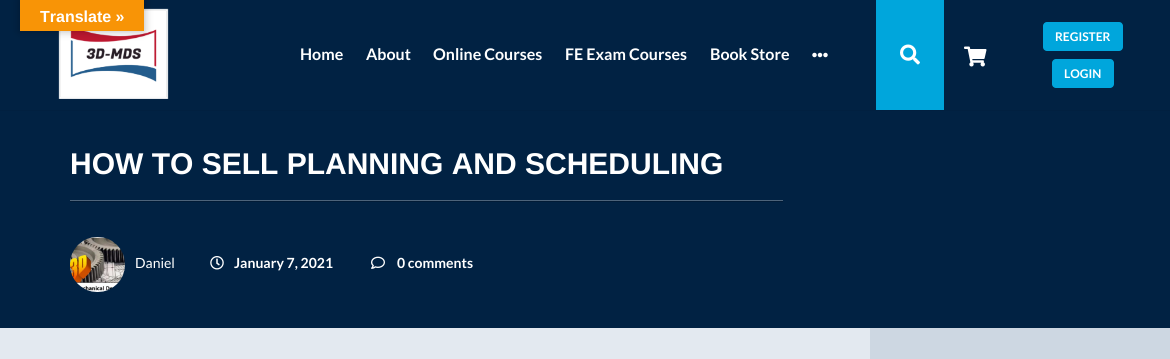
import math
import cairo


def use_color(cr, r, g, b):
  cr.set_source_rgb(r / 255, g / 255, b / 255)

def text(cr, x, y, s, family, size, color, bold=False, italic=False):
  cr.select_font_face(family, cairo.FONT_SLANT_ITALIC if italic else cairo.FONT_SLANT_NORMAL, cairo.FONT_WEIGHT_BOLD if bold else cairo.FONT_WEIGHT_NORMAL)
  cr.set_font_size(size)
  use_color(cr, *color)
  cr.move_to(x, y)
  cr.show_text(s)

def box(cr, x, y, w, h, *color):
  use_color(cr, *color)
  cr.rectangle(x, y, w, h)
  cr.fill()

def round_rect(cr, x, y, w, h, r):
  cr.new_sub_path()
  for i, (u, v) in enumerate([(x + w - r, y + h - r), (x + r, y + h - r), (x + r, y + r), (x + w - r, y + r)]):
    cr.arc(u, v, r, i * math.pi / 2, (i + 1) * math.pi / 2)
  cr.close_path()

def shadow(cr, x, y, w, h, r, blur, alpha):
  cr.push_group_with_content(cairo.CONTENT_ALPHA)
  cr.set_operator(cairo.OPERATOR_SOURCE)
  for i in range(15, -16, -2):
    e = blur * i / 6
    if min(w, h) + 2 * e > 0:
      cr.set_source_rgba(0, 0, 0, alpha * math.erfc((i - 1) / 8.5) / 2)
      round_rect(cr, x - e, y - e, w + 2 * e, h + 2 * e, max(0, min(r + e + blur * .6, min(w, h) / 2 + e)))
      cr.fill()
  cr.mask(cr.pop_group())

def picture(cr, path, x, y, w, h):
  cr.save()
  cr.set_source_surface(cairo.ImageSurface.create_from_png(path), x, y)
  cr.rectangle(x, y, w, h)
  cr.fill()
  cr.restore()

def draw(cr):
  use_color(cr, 1, 34, 67)
  cr.paint()
  picture(cr, "img_01.png", 58, 8, 111, 91)
  use_color(cr, 0, 0, 0)
  shadow(cr, 20, 0, 124, 31, 0, 4.5, 0.3)
  box(cr, 20, 0, 124, 31, 248, 148, 6)
  box(cr, 0, 110, 1170, 1, 1, 32, 64)
  picture(cr, "img_02.png", 812, 52, 16, 6)
  box(cr, 876, 0, 68, 110, 0, 166, 220)
  picture(cr, "img_03.png", 900, 44, 20, 21)
  picture(cr, "img_04.png", 964, 46, 23, 21)
  round_rect(cr, 1043, 22, 80, 29, 4)
  cr.fill()
  round_rect(cr, 1052, 59, 62, 29, 4)
  cr.fill()
  box(cr, 0, 328, 870, 31, 227, 233, 240)
  box(cr, 70, 201, 713, 1, 1, 27, 54)
  box(cr, 70, 200, 713, 1, 77, 100, 123)
  picture(cr, "img_05.png", 70, 237, 55, 55)
  picture(cr, "img_06.png", 210, 256, 14, 14)
  picture(cr, "img_07.png", 371, 256, 14, 13)
  box(cr, 870, 328, 300, 31, 205, 215, 226)
  text(cr, 40, 22, "Translate »", "Liberation Sans", 16, (255, 255, 255), bold=True)
  text(cr, 300, 60, "Home", "Lato", 16, (255, 255, 255), bold=True)
  text(cr, 366, 60, "About", "Lato", 16, (255, 255, 255), bold=True)
  text(cr, 433, 60, "Online Courses", "Lato", 16, (255, 255, 255), bold=True)
  text(cr, 565, 60, "FE Exam Courses", "Lato", 16, (255, 255, 255), bold=True)
  text(cr, 710, 60, "Book Store", "Lato", 16, (255, 255, 255), bold=True)
  text(cr, 1055, 41, "REGISTER", "Lato", 12, (255, 255, 255), bold=True)
  text(cr, 1064, 78, "LOGIN", "Lato", 12, (255, 255, 255), bold=True)
  text(cr, 70, 174, "HOW TO SELL PLANNING AND SCHEDULING", "Arimo", 30, (255, 255, 255), bold=True)
  text(cr, 135, 268, "Daniel", "Lato", 14, (255, 255, 255))
  text(cr, 234, 268, "January 7, 2021", "Lato", 14, (255, 255, 255), bold=True)
  text(cr, 397, 268, "0 comments", "Lato", 14, (255, 255, 255), bold=True)


surface = cairo.ImageSurface(cairo.FORMAT_RGB24, 1170, 359)
cr = cairo.Context(surface)
options = cairo.FontOptions()
options.set_hint_metrics(cairo.HINT_METRICS_OFF)
options.set_hint_style(cairo.HINT_STYLE_NONE)
cr.set_font_options(options)
cr.set_miter_limit(4)
draw(cr)
surface.write_to_png("out.png")
